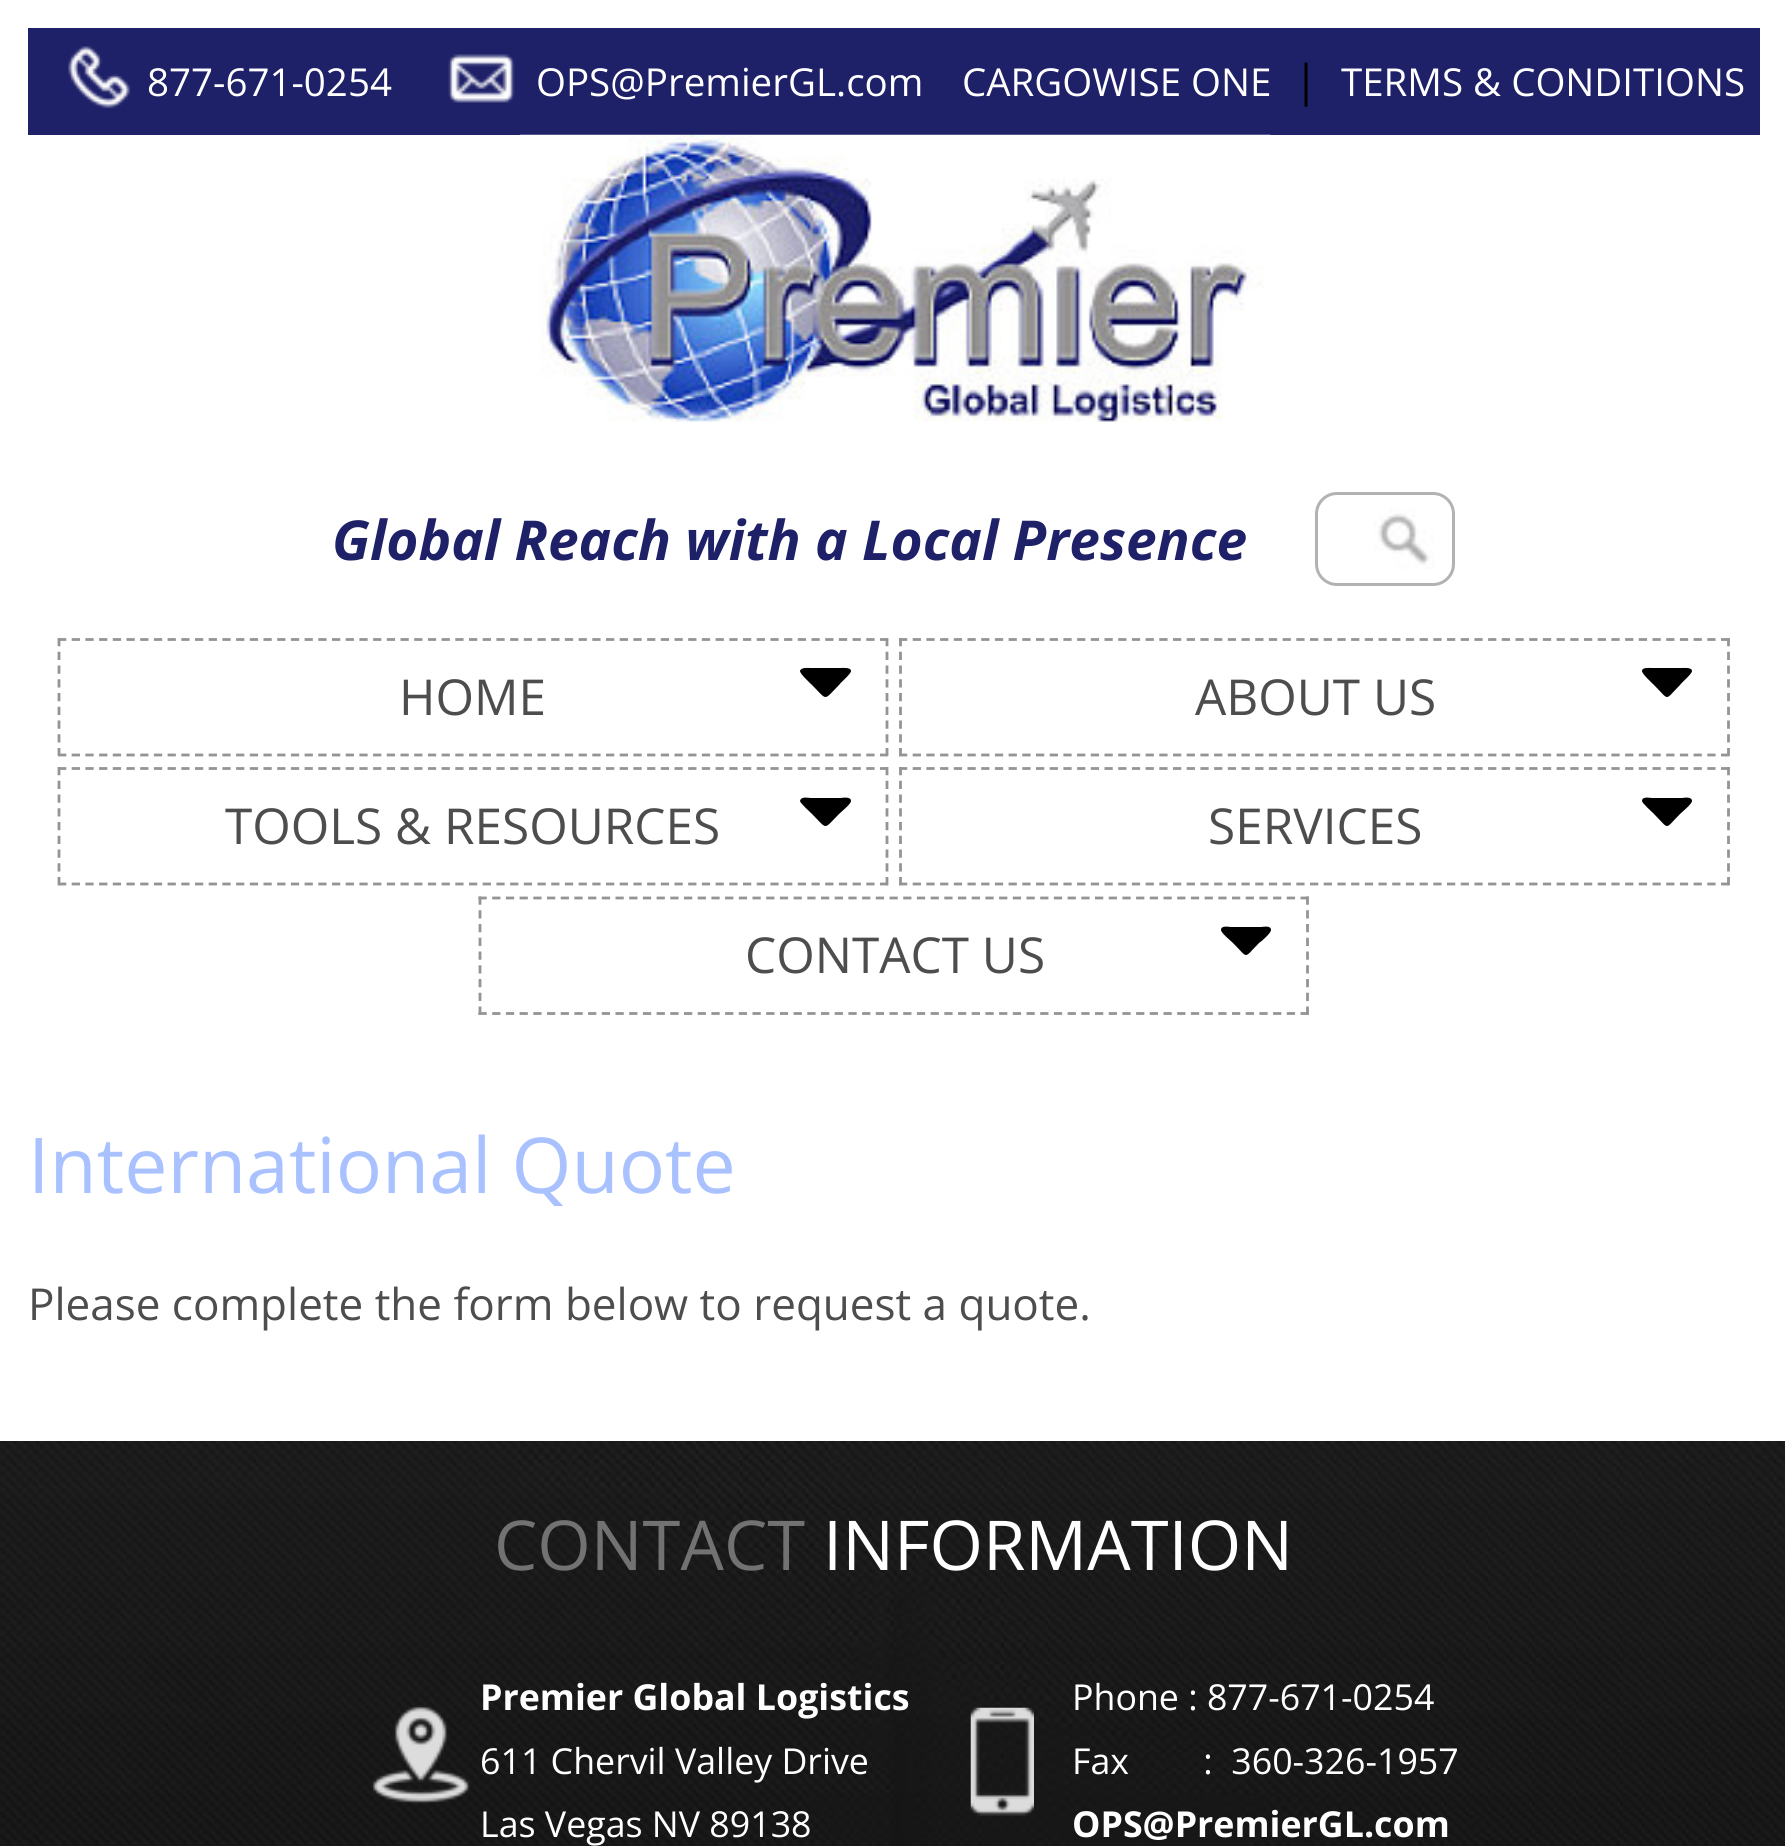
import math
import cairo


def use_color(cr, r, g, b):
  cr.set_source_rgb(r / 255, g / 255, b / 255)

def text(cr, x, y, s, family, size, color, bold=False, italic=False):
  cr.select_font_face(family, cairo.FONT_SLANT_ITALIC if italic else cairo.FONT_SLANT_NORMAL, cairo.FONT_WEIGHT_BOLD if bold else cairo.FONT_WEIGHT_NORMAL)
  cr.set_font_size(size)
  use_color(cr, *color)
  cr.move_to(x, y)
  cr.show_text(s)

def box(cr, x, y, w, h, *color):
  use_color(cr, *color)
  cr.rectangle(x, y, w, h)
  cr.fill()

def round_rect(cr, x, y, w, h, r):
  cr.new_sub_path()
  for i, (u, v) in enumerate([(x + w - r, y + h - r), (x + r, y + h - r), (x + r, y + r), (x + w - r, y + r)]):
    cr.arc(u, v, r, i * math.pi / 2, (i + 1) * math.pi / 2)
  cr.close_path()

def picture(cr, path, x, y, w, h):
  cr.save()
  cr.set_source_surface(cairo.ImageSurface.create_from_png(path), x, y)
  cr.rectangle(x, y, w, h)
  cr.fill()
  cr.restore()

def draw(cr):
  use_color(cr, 255, 255, 255)
  cr.paint()
  box(cr, 28, 28, 1732, 107, 30, 32, 104)
  picture(cr, "img_01.png", 68, 46, 63, 63)
  picture(cr, "img_02.png", 448, 54, 67, 49)
  picture(cr, "img_03.png", 519, 134, 752, 288)
  round_rect(cr, 1316.5, 493.5, 137, 91, 20.5)
  use_color(cr, 178, 178, 178)
  cr.set_line_width(3)
  cr.stroke()
  picture(cr, "img_04.png", 1374, 509, 60, 60)
  cr.new_path()
  cr.move_to(58, 639.5)
  cr.line_to(888, 639.5)
  use_color(cr, 149, 147, 150)
  cr.set_line_width(2.8)
  cr.set_dash([8.25, 5.45])
  cr.stroke()
  cr.new_path()
  cr.move_to(887, 638)
  cr.line_to(887, 756)
  cr.set_dash([8.25, 5.5])
  cr.stroke()
  cr.new_path()
  cr.move_to(58, 755)
  cr.line_to(888, 755)
  cr.set_dash([8.25, 5.45])
  cr.stroke()
  cr.new_path()
  cr.move_to(59, 638)
  cr.line_to(59, 756)
  cr.set_dash([8.25, 5.5])
  cr.stroke()
  use_color(cr, 0, 0, 0)
  cr.new_path()
  cr.move_to(851, 671)
  cr.curve_to(851, 667, 842, 668, 840, 668)
  cr.line_to(811, 668)
  cr.curve_to(808, 668, 801, 667, 800, 671)
  cr.curve_to(800, 674, 810, 683, 812, 685)
  cr.curve_to(828, 701, 823, 701, 839, 685)
  cr.curve_to(841, 682, 851, 674, 851, 671)
  cr.close_path()
  cr.fill()
  cr.new_path()
  cr.move_to(899, 639.5)
  cr.line_to(1730, 639.5)
  use_color(cr, 149, 147, 150)
  cr.set_dash([8.25, 5.45])
  cr.stroke()
  cr.new_path()
  cr.move_to(1728.5, 638)
  cr.line_to(1728.5, 756)
  cr.set_dash([8.25, 5.5])
  cr.stroke()
  cr.new_path()
  cr.move_to(899, 755)
  cr.line_to(1730, 755)
  cr.set_dash([8.25, 5.45])
  cr.stroke()
  cr.new_path()
  cr.move_to(900.5, 638)
  cr.line_to(900.5, 756)
  cr.set_dash([8.25, 5.5])
  cr.stroke()
  use_color(cr, 0, 0, 0)
  cr.new_path()
  cr.move_to(1692, 671)
  cr.curve_to(1692, 667, 1683, 668, 1682, 668)
  cr.line_to(1652, 668)
  cr.curve_to(1650, 668, 1642, 667, 1642, 671)
  cr.curve_to(1642, 674, 1652, 683, 1654, 685)
  cr.curve_to(1670, 701, 1664, 701, 1680, 685)
  cr.curve_to(1682, 682, 1692, 674, 1692, 671)
  cr.close_path()
  cr.fill()
  cr.new_path()
  cr.move_to(58, 768.5)
  cr.line_to(888, 768.5)
  use_color(cr, 149, 147, 150)
  cr.set_dash([8.25, 5.45])
  cr.stroke()
  cr.new_path()
  cr.move_to(887, 767)
  cr.line_to(887, 885.5)
  cr.set_dash([8.25, 5.5])
  cr.stroke()
  cr.new_path()
  cr.move_to(58, 884)
  cr.line_to(888, 884)
  cr.set_dash([8.25, 5.45])
  cr.stroke()
  cr.new_path()
  cr.move_to(59, 767)
  cr.line_to(59, 885.5)
  cr.set_dash([8.25, 5.5])
  cr.stroke()
  use_color(cr, 0, 0, 0)
  cr.new_path()
  cr.move_to(851, 801)
  cr.curve_to(851, 796, 842, 798, 840, 798)
  cr.line_to(811, 798)
  cr.curve_to(808, 798, 801, 796, 800, 801)
  cr.curve_to(800, 803, 810, 812, 812, 814)
  cr.curve_to(828, 830, 823, 830, 839, 814)
  cr.curve_to(841, 812, 851, 804, 851, 801)
  cr.close_path()
  cr.fill()
  cr.new_path()
  cr.move_to(899, 768.5)
  cr.line_to(1730, 768.5)
  use_color(cr, 149, 147, 150)
  cr.set_dash([8.25, 5.45])
  cr.stroke()
  cr.new_path()
  cr.move_to(1728.5, 767)
  cr.line_to(1728.5, 885.5)
  cr.set_dash([8.25, 5.5])
  cr.stroke()
  cr.new_path()
  cr.move_to(899, 884)
  cr.line_to(1730, 884)
  cr.set_dash([8.25, 5.45])
  cr.stroke()
  cr.new_path()
  cr.move_to(900.5, 767)
  cr.line_to(900.5, 885.5)
  cr.set_dash([8.25, 5.5])
  cr.stroke()
  use_color(cr, 0, 0, 0)
  cr.new_path()
  cr.move_to(1692, 801)
  cr.curve_to(1692, 796, 1683, 798, 1682, 798)
  cr.line_to(1652, 798)
  cr.curve_to(1650, 798, 1642, 796, 1642, 801)
  cr.curve_to(1642, 803, 1652, 812, 1654, 814)
  cr.curve_to(1670, 830, 1664, 830, 1680, 814)
  cr.curve_to(1682, 812, 1692, 804, 1692, 801)
  cr.close_path()
  cr.fill()
  cr.new_path()
  cr.move_to(478.5, 898)
  cr.line_to(1309, 898)
  use_color(cr, 149, 147, 150)
  cr.set_dash([8.25, 5.45])
  cr.stroke()
  cr.new_path()
  cr.move_to(1307.5, 896.5)
  cr.line_to(1307.5, 1015)
  cr.set_dash([8.25, 5.5])
  cr.stroke()
  cr.new_path()
  cr.move_to(478.5, 1013.5)
  cr.line_to(1309, 1013.5)
  cr.set_dash([8.25, 5.45])
  cr.stroke()
  cr.new_path()
  cr.move_to(480, 896.5)
  cr.line_to(480, 1015)
  cr.set_dash([8.25, 5.5])
  cr.stroke()
  use_color(cr, 0, 0, 0)
  cr.new_path()
  cr.move_to(1271, 930)
  cr.curve_to(1271, 925, 1263, 927, 1261, 927)
  cr.line_to(1231, 927)
  cr.curve_to(1229, 927, 1221, 925, 1221, 930)
  cr.curve_to(1221, 933, 1231, 941, 1233, 943)
  cr.curve_to(1249, 959, 1243, 959, 1259, 943)
  cr.curve_to(1262, 941, 1271, 933, 1271, 930)
  cr.close_path()
  cr.fill()
  picture(cr, "img_05.png", 0, 1441, 1785, 405)
  picture(cr, "img_06.png", 371, 1705, 100, 99)
  picture(cr, "img_07.png", 970, 1707, 64, 109)
  text(cr, 147, 96, "877-671-0254", "Open Sans", 38.5, (255, 255, 255))
  text(cr, 536, 96, "OPS@PremierGL.com", "Open Sans", 38.5, (255, 255, 255))
  text(cr, 962, 96, "CARGOWISE ONE", "Open Sans", 38.5, (255, 255, 255))
  text(cr, 1294, 96, "|", "Open Sans", 44, (0, 0, 0))
  text(cr, 1341, 96, "TERMS & CONDITIONS", "Open Sans", 38.5, (255, 255, 255))
  text(cr, 332, 560, "Global Reach with a Local Presence", "Open Sans", 55, (30, 32, 104), bold=True, italic=True)
  text(cr, 399, 715, "HOME", "Open Sans", 49.5, (77, 77, 77))
  text(cr, 1195, 715, "ABOUT US", "Open Sans", 49.5, (77, 77, 77))
  text(cr, 225, 844, "TOOLS & RESOURCES", "Open Sans", 49.5, (77, 77, 77))
  text(cr, 1208, 844, "SERVICES", "Open Sans", 49.5, (77, 77, 77))
  text(cr, 745, 973, "CONTACT US", "Open Sans", 49.5, (77, 77, 77))
  text(cr, 28, 1193, "International Quote", "Open Sans", 77, (169, 194, 255))
  text(cr, 28, 1320, "Please complete the form below to request a quote.", "Open Sans", 44, (77, 77, 77))
  text(cr, 494, 1570, "CONTACT", "Open Sans", 68.75, (114, 114, 114))
  text(cr, 823, 1570, "INFORMATION", "Open Sans", 68.75, (255, 255, 255))
  text(cr, 480, 1710, "Premier Global Logistics", "Open Sans", 35.75, (255, 255, 255), bold=True)
  text(cr, 480, 1774, "611 Chervil Valley Drive", "Open Sans", 35.75, (255, 255, 255))
  text(cr, 480, 1837, "Las Vegas NV 89138", "Open Sans", 35.75, (255, 255, 255))
  text(cr, 1072, 1710, "Phone : 877-671-0254", "Open Sans", 35.75, (255, 255, 255))
  text(cr, 1072, 1774, "Fax        :  360-326-1957", "Open Sans", 35.75, (255, 255, 255))
  text(cr, 1072, 1837, "OPS@PremierGL.com", "Open Sans", 35.75, (255, 255, 255), bold=True)


surface = cairo.ImageSurface(cairo.FORMAT_RGB24, 1785, 1846)
cr = cairo.Context(surface)
options = cairo.FontOptions()
options.set_hint_metrics(cairo.HINT_METRICS_OFF)
options.set_hint_style(cairo.HINT_STYLE_NONE)
cr.set_font_options(options)
cr.set_miter_limit(4)
draw(cr)
surface.write_to_png("out.png")
